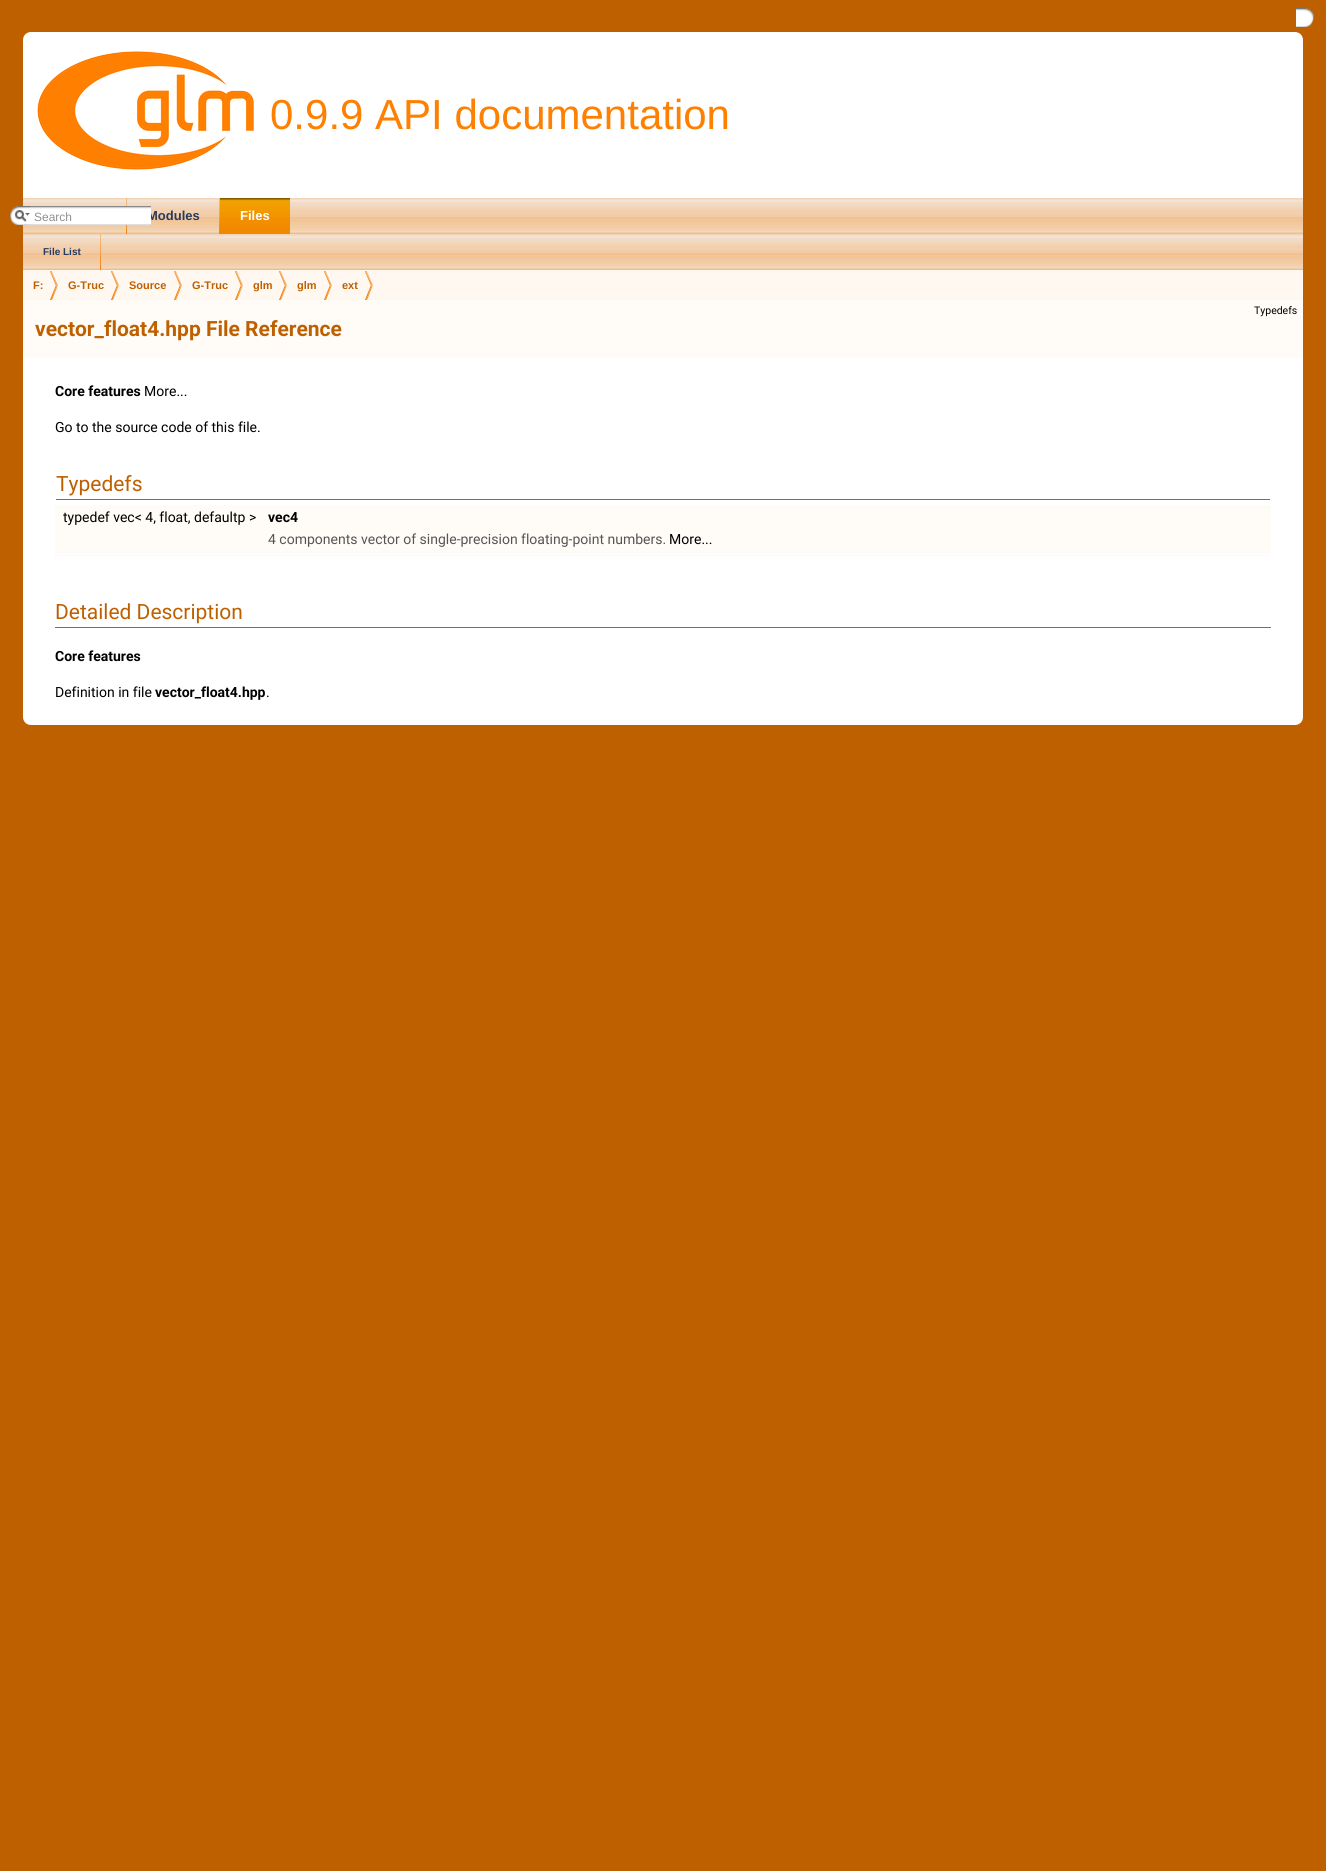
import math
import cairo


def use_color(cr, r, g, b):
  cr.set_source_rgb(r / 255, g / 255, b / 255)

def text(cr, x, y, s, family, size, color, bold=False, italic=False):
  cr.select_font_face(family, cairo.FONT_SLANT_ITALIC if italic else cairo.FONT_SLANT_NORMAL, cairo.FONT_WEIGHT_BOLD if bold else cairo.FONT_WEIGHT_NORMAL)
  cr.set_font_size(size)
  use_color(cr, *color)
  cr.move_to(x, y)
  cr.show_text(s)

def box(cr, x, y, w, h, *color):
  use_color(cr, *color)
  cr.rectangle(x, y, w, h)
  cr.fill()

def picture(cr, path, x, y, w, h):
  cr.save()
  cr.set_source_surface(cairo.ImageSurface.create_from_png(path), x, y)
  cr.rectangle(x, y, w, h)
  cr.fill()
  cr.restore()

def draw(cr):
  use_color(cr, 191, 96, 0)
  cr.paint()
  use_color(cr, 255, 255, 255)
  cr.new_path()
  cr.move_to(31, 32)
  cr.line_to(1295, 32)
  cr.curve_to(1299.5, 32, 1303, 35.5, 1303, 40)
  cr.line_to(1303, 198)
  cr.line_to(23, 198)
  cr.line_to(23, 40)
  cr.curve_to(23, 35.5, 26.5, 32, 31, 32)
  cr.close_path()
  cr.fill()
  picture(cr, "img_01.png", 37, 51, 217, 119)
  picture(cr, "img_02.png", 23, 198, 1280, 36)
  picture(cr, "img_03.png", 1296, 8, 18, 19)
  picture(cr, "img_04.png", 10, 206, 20, 19)
  picture(cr, "img_05.png", 15, 210, 15, 12)
  picture(cr, "img_07.png", 126, 198, 1, 36)
  picture(cr, "img_07.png", 219, 198, 1, 36)
  picture(cr, "img_08.png", 220, 198, 70, 36)
  picture(cr, "img_02.png", 23, 234, 1280, 36)
  picture(cr, "img_07.png", 100, 234, 1, 36)
  box(cr, 23, 270, 1280, 30, 255, 248, 240)
  picture(cr, "img_09.png", 50, 271, 8, 29)
  picture(cr, "img_09.png", 111, 271, 8, 29)
  picture(cr, "img_09.png", 174, 271, 8, 29)
  picture(cr, "img_09.png", 235, 271, 8, 29)
  picture(cr, "img_09.png", 279, 271, 8, 29)
  picture(cr, "img_09.png", 324, 271, 8, 29)
  picture(cr, "img_09.png", 365, 271, 8, 29)
  box(cr, 23, 300, 1280, 58, 255, 252, 248)
  use_color(cr, 255, 255, 255)
  cr.new_path()
  cr.move_to(23, 358)
  cr.line_to(1303, 358)
  cr.line_to(1303, 717)
  cr.curve_to(1303, 721.5, 1299.5, 725, 1295, 725)
  cr.line_to(31, 725)
  cr.curve_to(26.5, 725, 23, 721.5, 23, 717)
  cr.close_path()
  cr.fill()
  box(cr, 56, 499, 1214, 1, 191, 96, 0)
  box(cr, 55, 505, 1216, 23, 255, 252, 248)
  box(cr, 55, 528, 1216, 26, 255, 252, 248)
  box(cr, 55, 555, 1216, 1, 255, 248, 240)
  box(cr, 55, 627, 1216, 1, 191, 96, 0)
  text(cr, 270, 129, "0.9.9 API documentation", "Liberation Sans", 42, (255, 128, 0))
  text(cr, 147, 220, "Modules", "Liberation Sans", 13, (40, 58, 93), bold=True)
  picture(cr, "img_06.png", 30, 206, 121, 19)
  text(cr, 34, 221, "Search", "Liberation Sans", 12, (144, 144, 144))
  text(cr, 240, 220, "Files", "Liberation Sans", 13, (255, 255, 255), bold=True)
  text(cr, 43, 255, "File List", "Liberation Sans", 10, (40, 58, 93), bold=True)
  text(cr, 33, 289, "F:", "Liberation Sans", 11, (191, 96, 0), bold=True)
  text(cr, 68, 289, "G-Truc", "Liberation Sans", 11, (191, 96, 0), bold=True)
  text(cr, 129, 289, "Source", "Liberation Sans", 11, (191, 96, 0), bold=True)
  text(cr, 192, 289, "G-Truc", "Liberation Sans", 11, (191, 96, 0), bold=True)
  text(cr, 253, 289, "glm", "Liberation Sans", 11, (191, 96, 0), bold=True)
  text(cr, 297, 289, "glm", "Liberation Sans", 11, (191, 96, 0), bold=True)
  text(cr, 342, 289, "ext", "Liberation Sans", 11, (191, 96, 0), bold=True)
  text(cr, 1254, 314, "Typedefs", "Roboto", 10.5, (0, 0, 0))
  text(cr, 35, 336, "vector_float4.hpp File Reference", "Roboto", 21, (191, 96, 0), bold=True)
  text(cr, 55, 396, "Core features", "Roboto", 14, (0, 0, 0), bold=True)
  text(cr, 144, 396, "More...", "Roboto", 14, (0, 0, 0))
  text(cr, 55, 432, "Go to the source code of this file.", "Roboto", 14, (0, 0, 0))
  text(cr, 56, 491, "Typedefs", "Roboto", 21, (191, 96, 0))
  text(cr, 63, 522, "typedef vec< 4, float, defaultp >", "Roboto", 14, (0, 0, 0))
  text(cr, 268, 522, "vec4", "Roboto", 14, (0, 0, 0), bold=True)
  text(cr, 268, 544, "4 components vector of single-precision floating-point numbers.", "Roboto", 14, (85, 85, 85))
  text(cr, 669, 544, "More...", "Roboto", 14, (0, 0, 0))
  text(cr, 55, 619, "Detailed Description", "Roboto", 21, (191, 96, 0))
  text(cr, 55, 661, "Core features", "Roboto", 14, (0, 0, 0), bold=True)
  text(cr, 55, 697, "Definition in file", "Roboto", 14, (0, 0, 0))
  text(cr, 155, 697, "vector_float4.hpp", "Roboto", 14, (0, 0, 0), bold=True)
  text(cr, 266, 697, ".", "Roboto", 14, (0, 0, 0))


surface = cairo.ImageSurface(cairo.FORMAT_RGB24, 1326, 1871)
cr = cairo.Context(surface)
options = cairo.FontOptions()
options.set_hint_metrics(cairo.HINT_METRICS_OFF)
options.set_hint_style(cairo.HINT_STYLE_NONE)
cr.set_font_options(options)
cr.set_miter_limit(4)
draw(cr)
surface.write_to_png("out.png")
